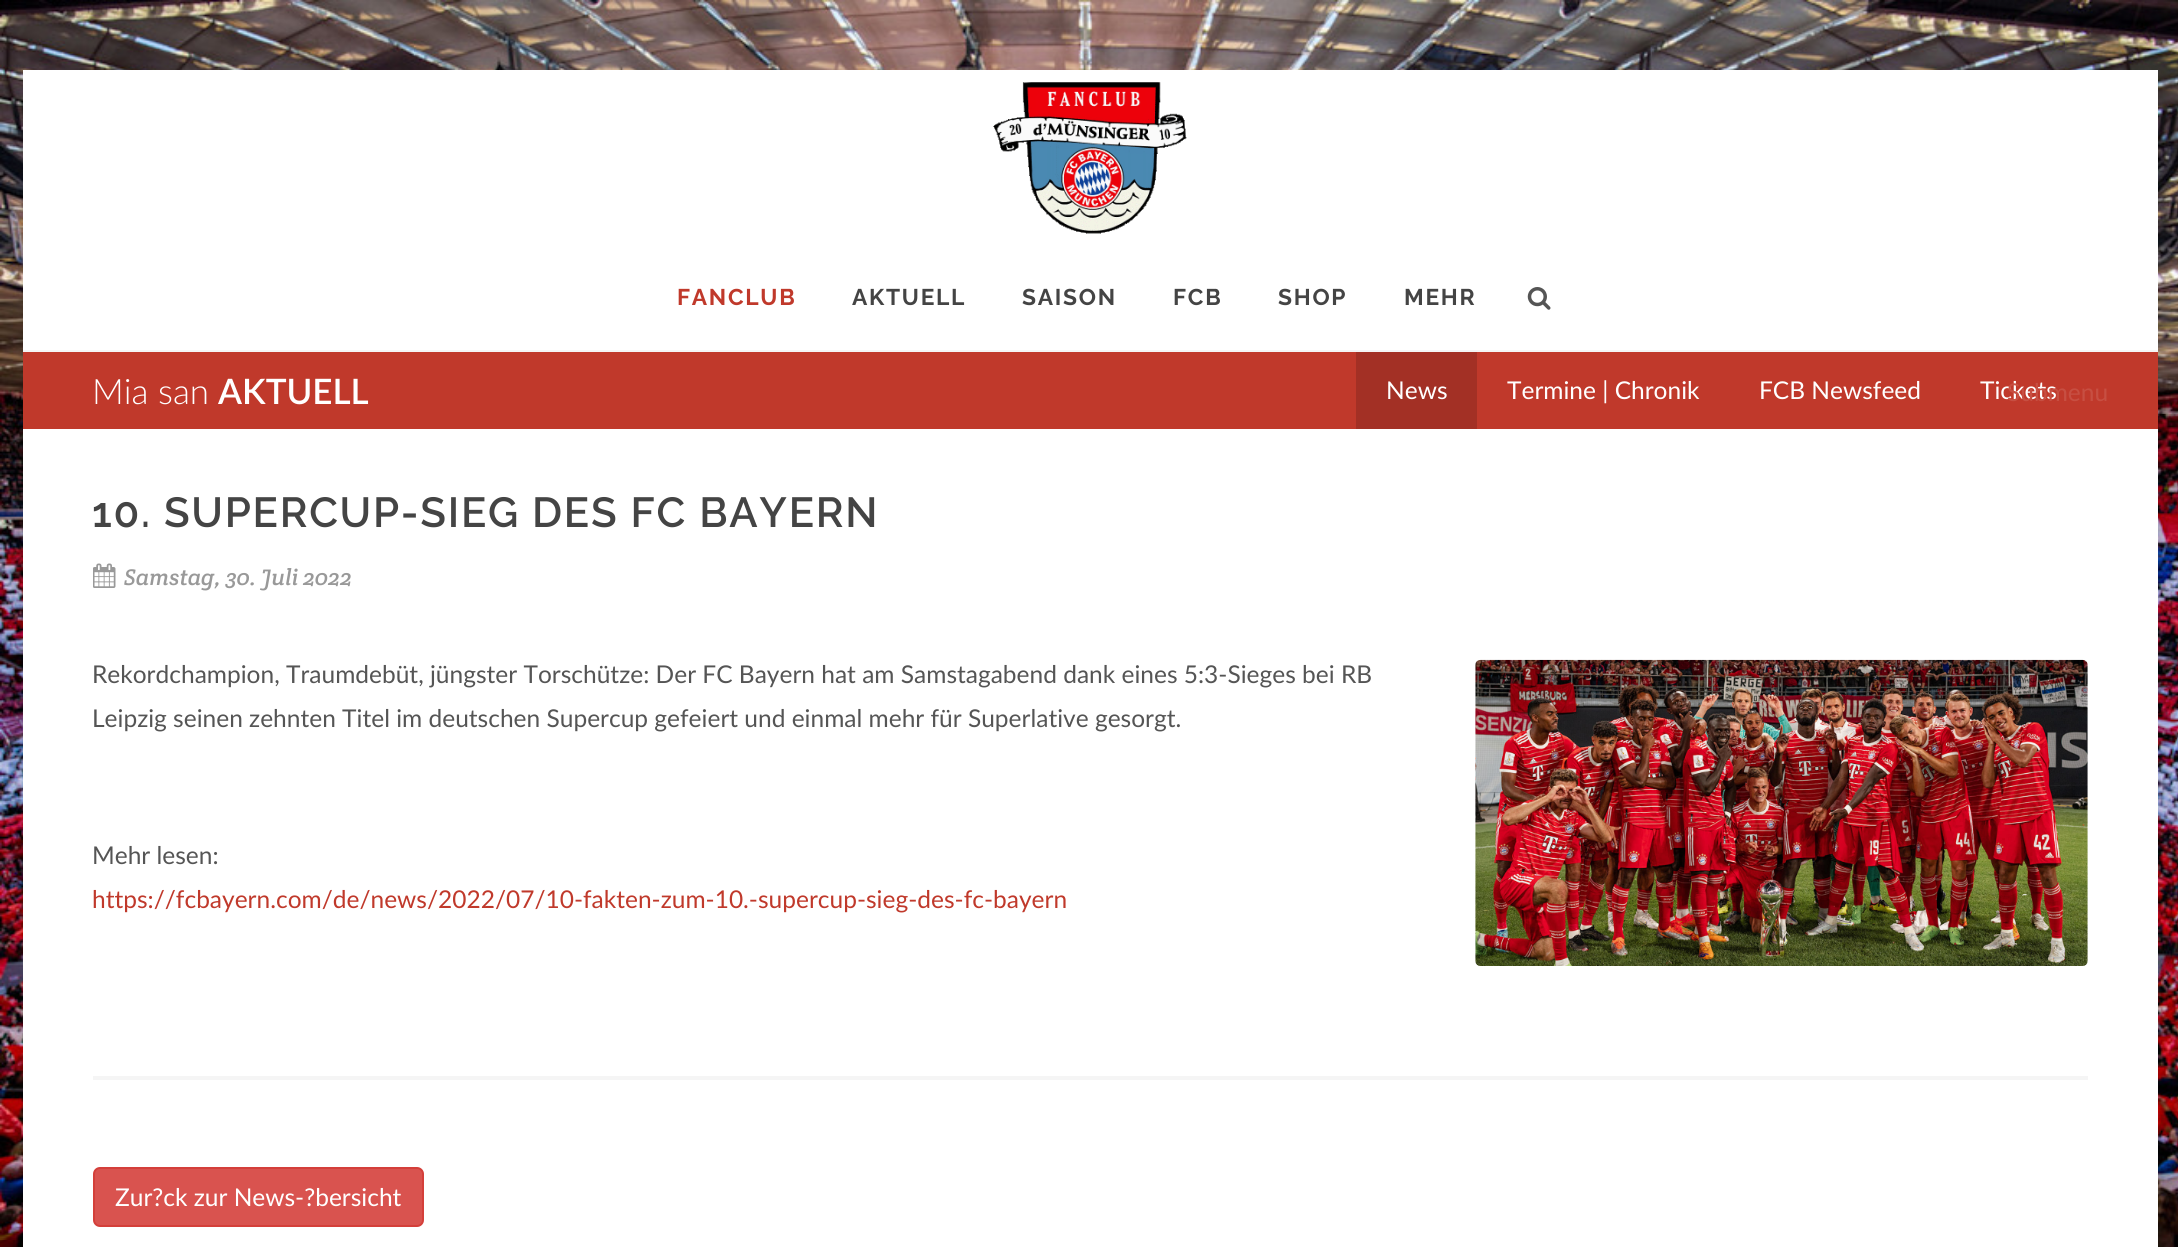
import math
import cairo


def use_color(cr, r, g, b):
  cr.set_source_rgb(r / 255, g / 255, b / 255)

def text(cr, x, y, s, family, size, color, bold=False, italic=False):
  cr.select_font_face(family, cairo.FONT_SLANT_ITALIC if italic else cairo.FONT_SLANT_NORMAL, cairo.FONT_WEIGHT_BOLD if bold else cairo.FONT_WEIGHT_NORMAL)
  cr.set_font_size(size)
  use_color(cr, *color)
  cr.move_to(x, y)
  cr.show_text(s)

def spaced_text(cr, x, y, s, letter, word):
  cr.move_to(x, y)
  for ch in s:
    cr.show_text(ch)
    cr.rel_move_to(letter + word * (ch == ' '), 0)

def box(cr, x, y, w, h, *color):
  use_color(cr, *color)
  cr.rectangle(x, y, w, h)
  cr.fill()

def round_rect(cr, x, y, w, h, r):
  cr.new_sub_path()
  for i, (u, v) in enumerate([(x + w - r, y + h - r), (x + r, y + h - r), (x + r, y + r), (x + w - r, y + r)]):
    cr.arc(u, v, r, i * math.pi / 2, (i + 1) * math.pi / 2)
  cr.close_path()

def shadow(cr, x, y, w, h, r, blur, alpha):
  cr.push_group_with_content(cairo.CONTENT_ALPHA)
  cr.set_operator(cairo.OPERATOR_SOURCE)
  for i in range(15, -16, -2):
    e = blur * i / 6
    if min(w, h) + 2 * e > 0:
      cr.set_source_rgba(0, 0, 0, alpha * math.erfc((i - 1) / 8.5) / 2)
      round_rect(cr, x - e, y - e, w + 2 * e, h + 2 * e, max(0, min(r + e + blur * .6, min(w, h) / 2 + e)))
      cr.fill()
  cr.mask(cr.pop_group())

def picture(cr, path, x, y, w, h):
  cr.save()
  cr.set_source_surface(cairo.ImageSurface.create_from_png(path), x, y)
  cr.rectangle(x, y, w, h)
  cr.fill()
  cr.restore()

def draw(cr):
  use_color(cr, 255, 255, 255)
  cr.paint()
  picture(cr, "img_01.png", 0, 0, 2178, 1247)
  use_color(cr, 0, 0, 0)
  shadow(cr, 23, 70, 2135, 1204, 0, 9, 0.1)
  box(cr, 23, 70, 2135, 1177, 255, 255, 255)
  box(cr, 23, 350, 2135, 2, 245, 245, 245)
  picture(cr, "img_02.png", 993, 82, 194, 152)
  picture(cr, "img_03.png", 1527, 287, 24, 23)
  box(cr, 23, 352, 2135, 77, 192, 57, 43)
  box(cr, 1356, 352, 121, 77, 163, 48, 37)
  box(cr, 93, 1076, 1995, 4, 245, 245, 245)
  picture(cr, "img_04.png", 93, 563, 23, 25)
  picture(cr, "img_05.png", 1475, 659, 613, 307)
  use_color(cr, 217, 83, 79)
  round_rect(cr, 94, 1168, 329, 58, 6)
  cr.fill_preserve()
  use_color(cr, 212, 63, 58)
  cr.stroke()
  cr.select_font_face("Raleway", cairo.FONT_SLANT_NORMAL, cairo.FONT_WEIGHT_BOLD)
  cr.set_font_size(22.75)
  use_color(cr, 192, 57, 43)
  spaced_text(cr, 677, 305, "FANCLUB", 1.75, 0)
  use_color(cr, 68, 68, 68)
  spaced_text(cr, 852, 305, "AKTUELL", 1.75, 0)
  spaced_text(cr, 1022, 305, "SAISON", 1.75, 0)
  spaced_text(cr, 1173, 305, "FCB", 1.75, 0)
  spaced_text(cr, 1278, 305, "SHOP", 1.75, 0)
  spaced_text(cr, 1404, 305, "MEHR", 1.75, 0)
  text(cr, 92, 404, "Mia san", "Lato Light", 35, (255, 255, 255))
  text(cr, 218, 404, "AKTUELL", "Lato SemiBold", 35, (255, 255, 255))
  text(cr, 1386, 399, "News", "Lato", 24.5, (255, 255, 255))
  text(cr, 1507, 399, "Termine | Chronik", "Lato", 24.5, (255, 255, 255))
  text(cr, 1759, 399, "FCB Newsfeed", "Lato", 24.5, (255, 255, 255))
  text(cr, 1980, 399, "Tickets", "Lato", 24.5, (255, 255, 255))
  text(cr, 2007, 401, "Submenu", "Lato", 24.5, (199, 79, 66))
  cr.select_font_face("Raleway SemiBold")
  cr.set_font_size(42)
  use_color(cr, 68, 68, 68)
  spaced_text(cr, 92, 527, "10. SUPERCUP-SIEG DES FC BAYERN", 1.75, 0)
  text(cr, 124, 585, "Samstag, 30. Juli 2022", "Crete Round", 22.75, (153, 153, 153), italic=True)
  text(cr, 92, 683, "Rekordchampion, Traumdebüt, jüngster Torschütze: Der FC Bayern hat am Samstagabend dank eines 5:3-Sieges bei RB", "Lato", 24.5, (85, 85, 85))
  text(cr, 92, 727, "Leipzig seinen zehnten Titel im deutschen Supercup gefeiert und einmal mehr für Superlative gesorgt.", "Lato", 24.5, (85, 85, 85))
  text(cr, 92, 864, "Mehr lesen:", "Lato", 24.5, (85, 85, 85))
  text(cr, 92, 908, "https://fcbayern.com/de/news/2022/07/10-fakten-zum-10.-supercup-sieg-des-fc-bayern", "Lato", 24.5, (192, 57, 43))
  text(cr, 115, 1206, "Zur?ck zur News-?bersicht", "Lato", 24.5, (255, 255, 255))


surface = cairo.ImageSurface(cairo.FORMAT_RGB24, 2178, 1247)
cr = cairo.Context(surface)
options = cairo.FontOptions()
options.set_hint_metrics(cairo.HINT_METRICS_OFF)
options.set_hint_style(cairo.HINT_STYLE_NONE)
cr.set_font_options(options)
cr.set_miter_limit(4)
draw(cr)
surface.write_to_png("out.png")
